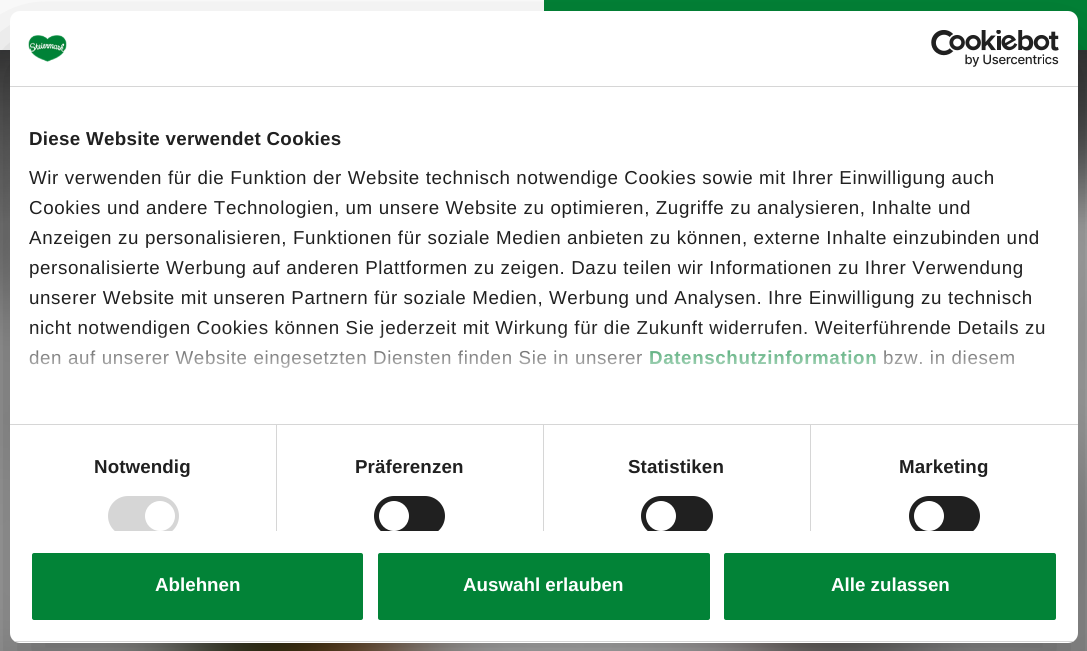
import math
import cairo


def use_color(cr, r, g, b):
  cr.set_source_rgb(r / 255, g / 255, b / 255)

def text(cr, x, y, s, family, size, color, bold=False, italic=False):
  cr.select_font_face(family, cairo.FONT_SLANT_ITALIC if italic else cairo.FONT_SLANT_NORMAL, cairo.FONT_WEIGHT_BOLD if bold else cairo.FONT_WEIGHT_NORMAL)
  cr.set_font_size(size)
  use_color(cr, *color)
  cr.move_to(x, y)
  cr.show_text(s)

def spaced_text(cr, x, y, s, letter, word):
  cr.move_to(x, y)
  for ch in s:
    cr.show_text(ch)
    cr.rel_move_to(letter + word * (ch == ' '), 0)

def box(cr, x, y, w, h, *color):
  use_color(cr, *color)
  cr.rectangle(x, y, w, h)
  cr.fill()

def round_rect(cr, x, y, w, h, r):
  cr.new_sub_path()
  for i, (u, v) in enumerate([(x + w - r, y + h - r), (x + r, y + h - r), (x + r, y + r), (x + w - r, y + r)]):
    cr.arc(u, v, r, i * math.pi / 2, (i + 1) * math.pi / 2)
  cr.close_path()

def shadow(cr, x, y, w, h, r, blur, alpha):
  cr.push_group_with_content(cairo.CONTENT_ALPHA)
  cr.set_operator(cairo.OPERATOR_SOURCE)
  for i in range(15, -16, -2):
    e = blur * i / 6
    if min(w, h) + 2 * e > 0:
      cr.set_source_rgba(0, 0, 0, alpha * math.erfc((i - 1) / 8.5) / 2)
      round_rect(cr, x - e, y - e, w + 2 * e, h + 2 * e, max(0, min(r + e + blur * .6, min(w, h) / 2 + e)))
      cr.fill()
  cr.mask(cr.pop_group())

def picture(cr, path, x, y, w, h):
  cr.save()
  cr.set_source_surface(cairo.ImageSurface.create_from_png(path), x, y)
  cr.rectangle(x, y, w, h)
  cr.fill()
  cr.restore()

def draw(cr):
  use_color(cr, 255, 255, 255)
  cr.paint()
  picture(cr, "img_01.png", 0, 50, 1087, 601)
  use_color(cr, 50, 60, 70)
  shadow(cr, 0, 0, 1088, 50, 0, 6, 0.2)
  box(cr, 0, 0, 544, 50, 255, 255, 255)
  box(cr, 544, 0, 543, 50, 2, 131, 55)
  use_color(cr, 0, 0, 0)
  shadow(cr, 10, 51, 1068, 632, 10, 42.5, 0.3)
  use_color(cr, 255, 255, 255)
  round_rect(cr, 10, 11, 1068, 632, 10)
  cr.fill()
  box(cr, 10, 86, 1068, 1, 214, 214, 214)
  picture(cr, "img_02.png", 28, 35, 39, 27)
  picture(cr, "img_03.png", 931, 30, 128, 37)
  box(cr, 10, 424, 1068, 1, 214, 214, 214)
  box(cr, 276, 425, 1, 106, 214, 214, 214)
  cr.save()
  cr.rectangle(10, 88, 1068, 443)
  cr.clip()
  round_rect(cr, 108, 496, 71, 40, 20)
  cr.fill()
  cr.restore()
  use_color(cr, 255, 255, 255)
  cr.arc(160, 516, 15, 0, 2 * math.pi)
  cr.fill()
  box(cr, 543, 425, 1, 106, 214, 214, 214)
  cr.save()
  cr.rectangle(10, 88, 1068, 443)
  cr.clip()
  use_color(cr, 32, 32, 32)
  round_rect(cr, 374, 496, 71, 40, 20)
  cr.fill()
  cr.restore()
  use_color(cr, 255, 255, 255)
  cr.arc(394, 516, 15, 0, 2 * math.pi)
  cr.fill()
  box(cr, 810, 425, 1, 106, 214, 214, 214)
  cr.save()
  cr.rectangle(10, 88, 1068, 443)
  cr.clip()
  use_color(cr, 32, 32, 32)
  round_rect(cr, 641, 496, 72, 40, 20)
  cr.fill()
  cr.restore()
  use_color(cr, 255, 255, 255)
  cr.arc(661, 516, 15, 0, 2 * math.pi)
  cr.fill()
  cr.save()
  cr.rectangle(10, 88, 1068, 443)
  cr.clip()
  use_color(cr, 32, 32, 32)
  round_rect(cr, 909, 496, 71, 40, 20)
  cr.fill()
  cr.restore()
  cr.arc(929, 516, 15, 0, 2 * math.pi)
  cr.fill()
  cr.save()
  round_rect(cr, 10, 11, 1068, 632, 10)
  cr.clip()
  box(cr, 10, 641, 1068, 1, 214, 214, 214)
  cr.restore()
  use_color(cr, 2, 131, 55)
  round_rect(cr, 30.5, 551.5, 334, 70, 3.5)
  cr.fill_preserve()
  use_color(cr, 255, 255, 255)
  cr.set_line_width(3)
  cr.stroke()
  use_color(cr, 2, 131, 55)
  round_rect(cr, 376.5, 551.5, 335, 70, 3.5)
  cr.fill_preserve()
  use_color(cr, 255, 255, 255)
  cr.stroke()
  use_color(cr, 2, 131, 55)
  round_rect(cr, 722.5, 551.5, 335, 70, 3.5)
  cr.fill_preserve()
  use_color(cr, 255, 255, 255)
  cr.stroke()
  cr.select_font_face("Liberation Sans", cairo.FONT_SLANT_NORMAL, cairo.FONT_WEIGHT_BOLD)
  cr.set_font_size(18.75)
  use_color(cr, 32, 32, 32)
  spaced_text(cr, 29, 145, "Diese Website verwendet Cookies", 0.3, 0)
  cr.select_font_face("Liberation Sans")
  spaced_text(cr, 29, 184, "Wir verwenden für die Funktion der Website technisch notwendige Cookies sowie mit Ihrer Einwilligung auch", 0.62, 0)
  spaced_text(cr, 29, 214, "Cookies und andere Technologien, um unsere Website zu optimieren, Zugriffe zu analysieren, Inhalte und", 0.62, 0)
  spaced_text(cr, 29, 244, "Anzeigen zu personalisieren, Funktionen für soziale Medien anbieten zu können, externe Inhalte einzubinden und", 0.62, 0)
  spaced_text(cr, 29, 274, "personalisierte Werbung auf anderen Plattformen zu zeigen. Dazu teilen wir Informationen zu Ihrer Verwendung", 0.62, 0)
  spaced_text(cr, 29, 304, "unserer Website mit unseren Partnern für soziale Medien, Werbung und Analysen. Ihre Einwilligung zu technisch", 0.62, 0)
  spaced_text(cr, 29, 334, "nicht notwendigen Cookies können Sie jederzeit mit Wirkung für die Zukunft widerrufen. Weiterführende Details zu", 0.62, 0)
  spaced_text(cr, 29, 364, "den auf unserer Website eingesetzten Diensten finden Sie in unserer", 0.62, 0)
  cr.select_font_face("Liberation Sans", cairo.FONT_SLANT_NORMAL, cairo.FONT_WEIGHT_BOLD)
  use_color(cr, 2, 131, 55)
  spaced_text(cr, 649, 364, "Datenschutzinformation", 0.62, 0)
  cr.select_font_face("Liberation Sans")
  use_color(cr, 32, 32, 32)
  spaced_text(cr, 883, 364, "bzw. in diesem", 0.62, 0)
  gradient = cairo.LinearGradient(536, 423, 536, 329)
  gradient.add_color_stop_rgba(0, 1, 1, 1, 1)
  gradient.add_color_stop_rgba(0.5, 1, 1, 1, 0.8)
  gradient.add_color_stop_rgba(1, 1, 1, 1, 0)
  cr.set_source(gradient)
  cr.rectangle(29, 330, 1016, 38)
  cr.fill()
  cr.select_font_face("Liberation Sans", cairo.FONT_SLANT_NORMAL, cairo.FONT_WEIGHT_BOLD)
  use_color(cr, 32, 32, 32)
  spaced_text(cr, 94, 473, "Notwendig", 0.1, 0)
  spaced_text(cr, 355, 473, "Präferenzen", 0.1, 0)
  spaced_text(cr, 628, 473, "Statistiken", 0.1, 0)
  spaced_text(cr, 899, 473, "Marketing", 0.1, 0)
  text(cr, 155, 591, "Ablehnen", "Liberation Sans", 18.75, (255, 255, 255), bold=True)
  text(cr, 463, 591, "Auswahl erlauben", "Liberation Sans", 18.75, (255, 255, 255), bold=True)
  text(cr, 831, 591, "Alle zulassen", "Liberation Sans", 18.75, (255, 255, 255), bold=True)


surface = cairo.ImageSurface(cairo.FORMAT_RGB24, 1087, 651)
cr = cairo.Context(surface)
options = cairo.FontOptions()
options.set_hint_metrics(cairo.HINT_METRICS_OFF)
options.set_hint_style(cairo.HINT_STYLE_NONE)
cr.set_font_options(options)
cr.set_miter_limit(4)
draw(cr)
surface.write_to_png("out.png")
